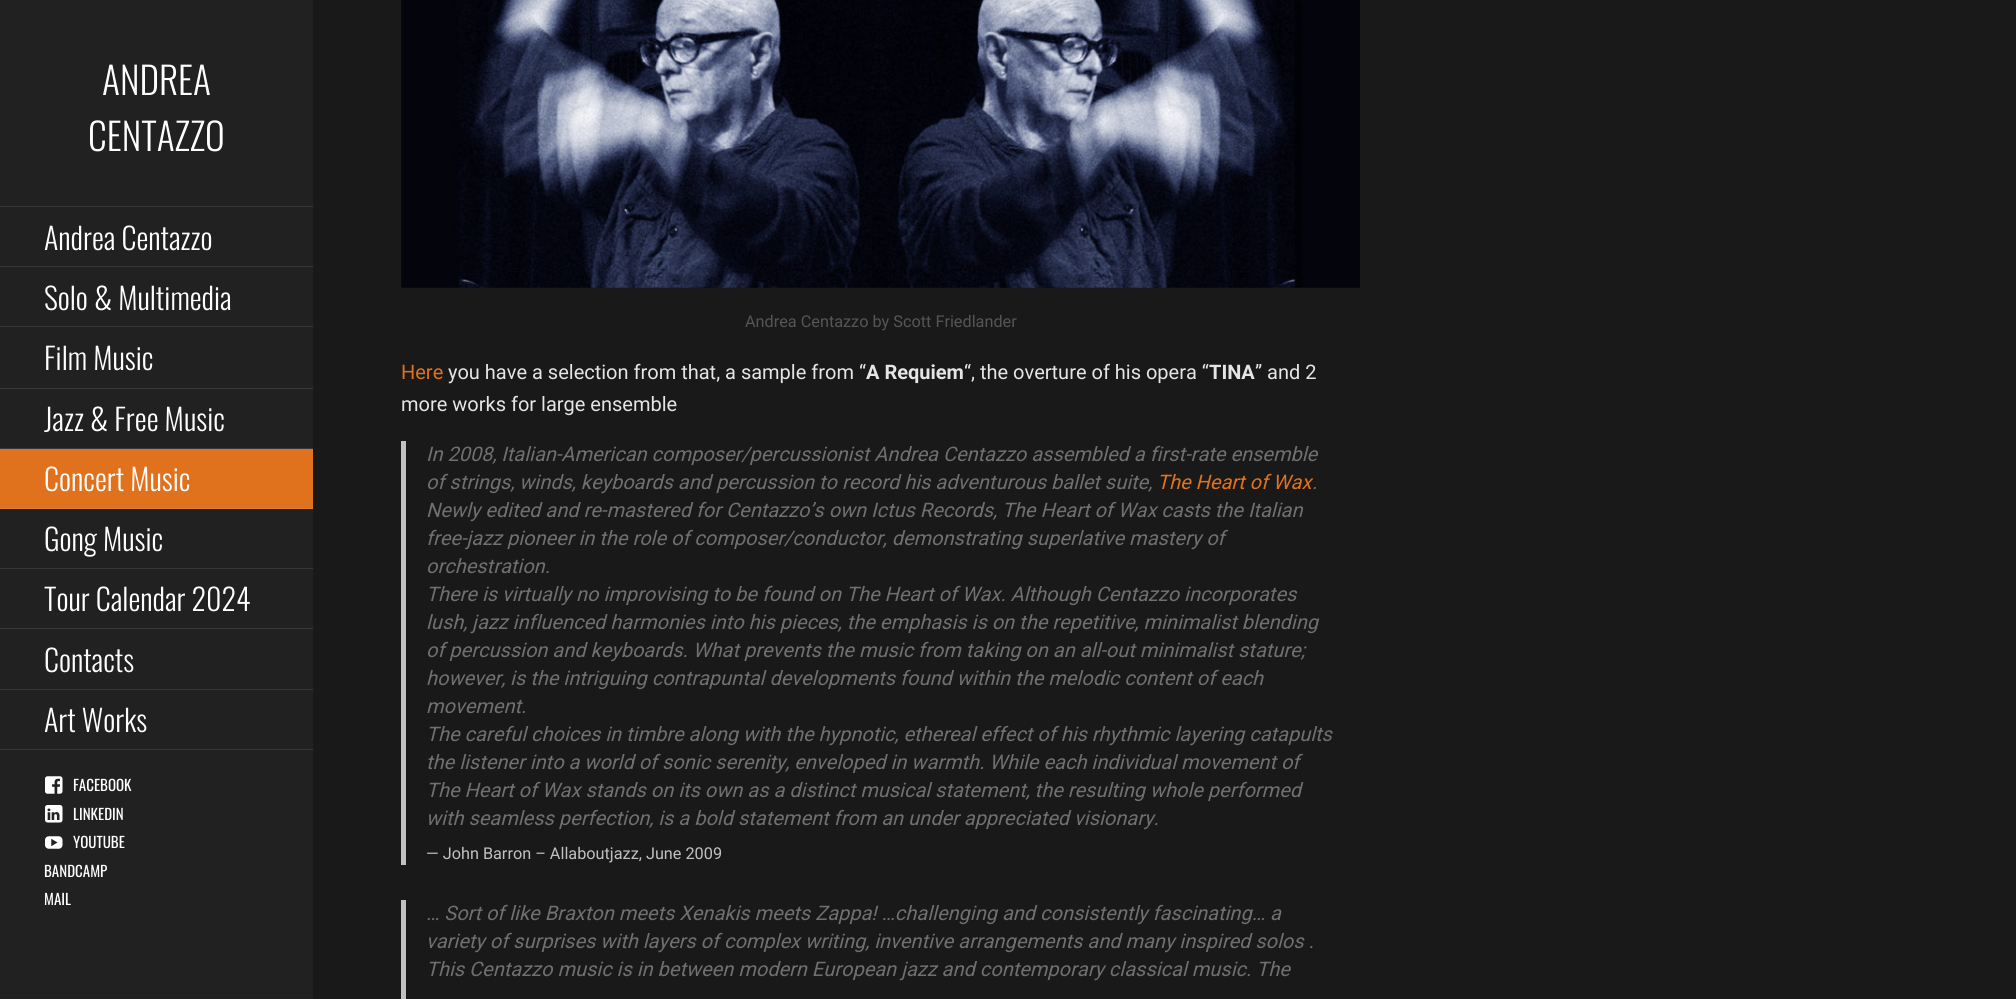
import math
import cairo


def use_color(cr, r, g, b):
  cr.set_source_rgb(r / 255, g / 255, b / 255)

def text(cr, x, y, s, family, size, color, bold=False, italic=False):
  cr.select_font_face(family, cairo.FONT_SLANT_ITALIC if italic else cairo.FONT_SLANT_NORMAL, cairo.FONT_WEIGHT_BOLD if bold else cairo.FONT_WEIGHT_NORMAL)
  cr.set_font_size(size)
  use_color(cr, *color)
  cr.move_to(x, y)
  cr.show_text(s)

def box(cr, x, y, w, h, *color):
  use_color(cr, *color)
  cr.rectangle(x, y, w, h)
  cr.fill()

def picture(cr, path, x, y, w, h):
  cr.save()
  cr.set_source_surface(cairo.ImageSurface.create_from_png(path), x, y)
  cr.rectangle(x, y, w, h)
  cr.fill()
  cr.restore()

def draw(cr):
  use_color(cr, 25, 25, 25)
  cr.paint()
  box(cr, 0, 0, 313, 999, 33, 33, 33)
  box(cr, 0, 206, 313, 1, 55, 55, 55)
  box(cr, 0, 266, 313, 1, 55, 55, 55)
  box(cr, 0, 326, 313, 1, 55, 55, 55)
  box(cr, 0, 388, 313, 1, 55, 55, 55)
  box(cr, 0, 448, 313, 1, 55, 55, 55)
  box(cr, 0, 449, 313, 59, 224, 113, 29)
  box(cr, 0, 508, 313, 1, 227, 127, 52)
  box(cr, 0, 568, 313, 1, 55, 55, 55)
  box(cr, 0, 628, 313, 1, 55, 55, 55)
  box(cr, 0, 689, 313, 1, 55, 55, 55)
  box(cr, 0, 749, 313, 1, 55, 55, 55)
  picture(cr, "img_01.png", 45, 776, 18, 18)
  picture(cr, "img_02.png", 45, 805, 18, 18)
  picture(cr, "img_03.png", 45, 836, 18, 13)
  picture(cr, "img_04.png", 401, 0, 959, 288)
  box(cr, 401, 441, 5, 424, 193, 193, 193)
  box(cr, 401, 900, 5, 99, 193, 193, 193)
  text(cr, 102, 95, "ANDREA", "Oswald Light", 37.5, (255, 255, 255))
  text(cr, 88, 151, "CENTAZZO", "Oswald Light", 37.5, (255, 255, 255))
  text(cr, 44, 250, "Andrea Centazzo", "Oswald Light", 30, (255, 255, 255))
  text(cr, 44, 310, "Solo & Multimedia", "Oswald Light", 30, (255, 255, 255))
  text(cr, 44, 370, "Film Music", "Oswald Light", 30, (255, 255, 255))
  text(cr, 44, 431, "Jazz & Free Music", "Oswald Light", 30, (255, 255, 255))
  text(cr, 44, 491, "Concert Music", "Oswald Light", 30, (255, 255, 255))
  text(cr, 44, 551, "Gong Music", "Oswald Light", 30, (255, 255, 255))
  text(cr, 44, 611, "Tour Calendar 2024", "Oswald Light", 30, (255, 255, 255))
  text(cr, 44, 672, "Contacts", "Oswald Light", 30, (255, 255, 255))
  text(cr, 44, 732, "Art Works", "Oswald Light", 30, (255, 255, 255))
  text(cr, 73, 791, "FACEBOOK", "Oswald", 15, (255, 255, 255))
  text(cr, 73, 820, "LINKEDIN", "Oswald", 15, (255, 255, 255))
  text(cr, 73, 848, "YOUTUBE", "Oswald", 15, (255, 255, 255))
  text(cr, 44, 877, "BANDCAMP", "Oswald", 15, (255, 255, 255))
  text(cr, 44, 905, "MAIL", "Oswald", 15, (255, 255, 255))
  text(cr, 745, 327, "Andrea Centazzo by Scott Friedlander", "Roboto", 16.25, (85, 85, 85))
  text(cr, 401, 379, "Here", "Roboto", 20, (224, 113, 29))
  text(cr, 448, 379, "you have a selection from that, a sample from “", "Roboto", 20, (229, 229, 229))
  text(cr, 866, 379, "A Requiem", "Roboto", 20, (229, 229, 229), bold=True)
  text(cr, 964, 379, "“, the overture of his opera “", "Roboto", 20, (229, 229, 229))
  text(cr, 1209, 379, "TINA", "Roboto", 20, (229, 229, 229), bold=True)
  text(cr, 1255, 379, "” and 2", "Roboto", 20, (229, 229, 229))
  text(cr, 401, 411, "more works for large ensemble", "Roboto", 20, (229, 229, 229))
  text(cr, 426, 461, "In 2008, Italian-American composer/percussionist Andrea Centazzo assembled a first-rate ensemble", "Roboto", 20, (111, 111, 111), italic=True)
  text(cr, 426, 489, "of strings, winds, keyboards and percussion to record his adventurous ballet suite,", "Roboto", 20, (111, 111, 111), italic=True)
  text(cr, 1157, 489, "The Heart of Wax", "Roboto", 20, (224, 113, 29), italic=True)
  text(cr, 1312, 489, ".", "Roboto", 20, (111, 111, 111), italic=True)
  text(cr, 426, 517, "Newly edited and re-mastered for Centazzo’s own Ictus Records, The Heart of Wax casts the Italian", "Roboto", 20, (111, 111, 111), italic=True)
  text(cr, 426, 545, "free-jazz pioneer in the role of composer/conductor, demonstrating superlative mastery of", "Roboto", 20, (111, 111, 111), italic=True)
  text(cr, 426, 573, "orchestration.", "Roboto", 20, (111, 111, 111), italic=True)
  text(cr, 426, 601, "There is virtually no improvising to be found on The Heart of Wax. Although Centazzo incorporates", "Roboto", 20, (111, 111, 111), italic=True)
  text(cr, 426, 629, "lush, jazz influenced harmonies into his pieces, the emphasis is on the repetitive, minimalist blending", "Roboto", 20, (111, 111, 111), italic=True)
  text(cr, 426, 657, "of percussion and keyboards. What prevents the music from taking on an all-out minimalist stature;", "Roboto", 20, (111, 111, 111), italic=True)
  text(cr, 426, 685, "however, is the intriguing contrapuntal developments found within the melodic content of each", "Roboto", 20, (111, 111, 111), italic=True)
  text(cr, 426, 713, "movement.", "Roboto", 20, (111, 111, 111), italic=True)
  text(cr, 426, 741, "The careful choices in timbre along with the hypnotic, ethereal effect of his rhythmic layering catapults", "Roboto", 20, (111, 111, 111), italic=True)
  text(cr, 426, 769, "the listener into a world of sonic serenity, enveloped in warmth. While each individual movement of", "Roboto", 20, (111, 111, 111), italic=True)
  text(cr, 426, 797, "The Heart of Wax stands on its own as a distinct musical statement, the resulting whole performed", "Roboto", 20, (111, 111, 111), italic=True)
  text(cr, 426, 825, "with seamless perfection, is a bold statement from an under appreciated visionary.", "Roboto", 20, (111, 111, 111), italic=True)
  text(cr, 426, 859, "— John Barron – Allaboutjazz, June 2009", "Roboto", 16.25, (193, 193, 193))
  text(cr, 426, 920, "… Sort of like Braxton meets Xenakis meets Zappa! …challenging and consistently fascinating… a", "Roboto", 20, (111, 111, 111), italic=True)
  text(cr, 426, 948, "variety of surprises with layers of complex writing, inventive arrangements and many inspired solos .", "Roboto", 20, (111, 111, 111), italic=True)
  text(cr, 426, 976, "This Centazzo music is in between modern European jazz and contemporary classical music. The", "Roboto", 20, (111, 111, 111), italic=True)


surface = cairo.ImageSurface(cairo.FORMAT_RGB24, 2016, 999)
cr = cairo.Context(surface)
options = cairo.FontOptions()
options.set_hint_metrics(cairo.HINT_METRICS_OFF)
options.set_hint_style(cairo.HINT_STYLE_NONE)
cr.set_font_options(options)
cr.set_miter_limit(4)
draw(cr)
surface.write_to_png("out.png")
